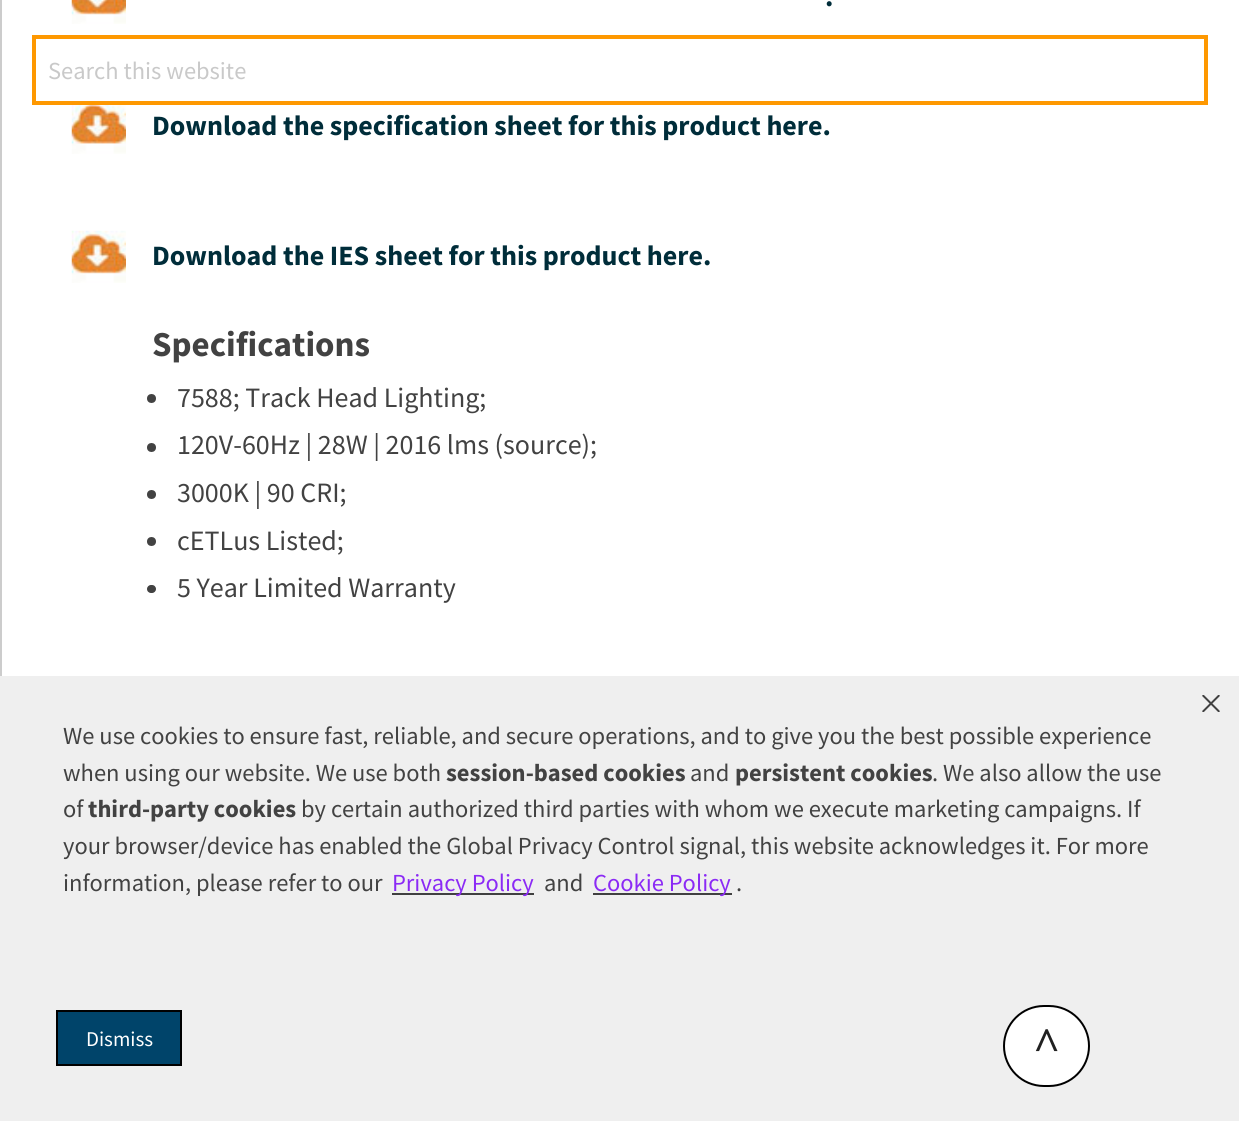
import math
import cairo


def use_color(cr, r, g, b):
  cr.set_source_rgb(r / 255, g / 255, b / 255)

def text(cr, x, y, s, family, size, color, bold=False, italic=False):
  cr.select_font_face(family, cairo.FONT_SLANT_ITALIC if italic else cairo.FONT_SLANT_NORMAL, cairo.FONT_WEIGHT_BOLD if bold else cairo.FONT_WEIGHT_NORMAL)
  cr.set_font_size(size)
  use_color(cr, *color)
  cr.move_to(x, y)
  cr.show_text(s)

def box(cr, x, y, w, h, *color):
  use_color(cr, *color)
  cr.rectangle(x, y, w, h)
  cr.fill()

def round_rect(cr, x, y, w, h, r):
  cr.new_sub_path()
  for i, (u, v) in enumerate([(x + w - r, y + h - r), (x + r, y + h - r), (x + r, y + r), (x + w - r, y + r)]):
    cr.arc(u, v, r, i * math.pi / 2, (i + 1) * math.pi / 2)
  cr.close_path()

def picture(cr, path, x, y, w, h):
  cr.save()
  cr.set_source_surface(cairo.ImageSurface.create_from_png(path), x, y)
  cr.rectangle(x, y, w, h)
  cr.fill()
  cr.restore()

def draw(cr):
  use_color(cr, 255, 255, 255)
  cr.paint()
  cr.rectangle(34, 37, 1172, 66)
  use_color(cr, 254, 152, 0)
  cr.set_line_width(4)
  cr.stroke()
  box(cr, 0, 0, 2, 676, 204, 204, 204)
  picture(cr, "img_01.png", 71, 0, 55, 24)
  picture(cr, "img_02.png", 71, 105, 55, 49)
  picture(cr, "img_03.png", 71, 230, 55, 53)
  use_color(cr, 66, 66, 66)
  cr.arc(151.5, 398.5, 4.5, 0, 2 * math.pi)
  cr.fill()
  cr.arc(151.5, 447.5, 4.5, 0, 2 * math.pi)
  cr.fill()
  cr.arc(151.5, 494.5, 4.5, 0, 2 * math.pi)
  cr.fill()
  cr.arc(151.5, 541.5, 4.5, 0, 2 * math.pi)
  cr.fill()
  round_rect(cr, 147, 585, 9, 8, 4)
  cr.fill()
  box(cr, 0, 676, 1239, 445, 239, 239, 239)
  use_color(cr, 255, 255, 255)
  round_rect(cr, 1004, 1006, 85, 80, 40)
  cr.fill_preserve()
  use_color(cr, 0, 0, 0)
  cr.set_line_width(2)
  cr.stroke()
  box(cr, 392, 893, 142, 2, 64, 64, 64)
  box(cr, 593, 893, 139, 2, 64, 64, 64)
  picture(cr, "img_04.png", 1202, 695, 18, 17)
  use_color(cr, 0, 68, 106)
  cr.rectangle(57, 1011, 124, 54)
  cr.fill_preserve()
  use_color(cr, 0, 0, 0)
  cr.stroke()
  text(cr, 48, 79, "Search this website", "Source Sans Pro", 24.5, (201, 201, 201))
  text(cr, 825, 6, ".", "Source Sans Pro", 28, (0, 45, 58), bold=True)
  text(cr, 152, 135, "Download the specification sheet for this product here.", "Source Sans Pro", 28, (0, 45, 58), bold=True)
  text(cr, 152, 265, "Download the IES sheet for this product here.", "Source Sans Pro", 28, (0, 45, 58), bold=True)
  text(cr, 152, 356, "Specifications", "Source Sans Pro", 35, (66, 66, 66), bold=True)
  text(cr, 177, 407, "7588; Track Head Lighting;", "Source Sans Pro", 28, (66, 66, 66))
  text(cr, 177, 454, "120V-60Hz | 28W | 2016 lms (source);", "Source Sans Pro", 28, (66, 66, 66))
  text(cr, 177, 502, "3000K | 90 CRI;", "Source Sans Pro", 28, (66, 66, 66))
  text(cr, 177, 550, "cETLus Listed;", "Source Sans Pro", 28, (66, 66, 66))
  text(cr, 177, 597, "5 Year Limited Warranty", "Source Sans Pro", 28, (66, 66, 66))
  text(cr, 1033, 1060, "^", "Liberation Serif", 47, (33, 33, 33), bold=True)
  text(cr, 63, 744, "We use cookies to ensure fast, reliable, and secure operations, and to give you the best possible experience", "Source Sans Pro", 24.5, (66, 66, 66))
  text(cr, 63, 781, "when using our website. We use both", "Source Sans Pro", 24.5, (66, 66, 66))
  text(cr, 446, 781, "session-based cookies", "Source Sans Pro", 24.5, (66, 66, 66), bold=True)
  text(cr, 690, 781, "and", "Source Sans Pro", 24.5, (66, 66, 66))
  text(cr, 735, 781, "persistent cookies", "Source Sans Pro", 24.5, (66, 66, 66), bold=True)
  text(cr, 932, 781, ". We also allow the use", "Source Sans Pro", 24.5, (66, 66, 66))
  text(cr, 63, 817, "of", "Source Sans Pro", 24.5, (66, 66, 66))
  text(cr, 88, 817, "third-party cookies", "Source Sans Pro", 24.5, (66, 66, 66), bold=True)
  text(cr, 301, 817, "by certain authorized third parties with whom we execute marketing campaigns. If", "Source Sans Pro", 24.5, (66, 66, 66))
  text(cr, 63, 854, "your browser/device has enabled the Global Privacy Control signal, this website acknowledges it. For more", "Source Sans Pro", 24.5, (66, 66, 66))
  text(cr, 63, 891, "information, please refer to our", "Source Sans Pro", 24.5, (66, 66, 66))
  text(cr, 392, 891, "Privacy Policy", "Source Sans Pro", 24.5, (139, 42, 245))
  text(cr, 544, 891, "and", "Source Sans Pro", 24.5, (66, 66, 66))
  text(cr, 593, 891, "Cookie Policy", "Source Sans Pro", 24.5, (139, 42, 245))
  text(cr, 736, 891, ".", "Source Sans Pro", 24.5, (66, 66, 66))
  text(cr, 86, 1046, "Dismiss", "Source Sans Pro", 21, (255, 255, 255))


surface = cairo.ImageSurface(cairo.FORMAT_RGB24, 1239, 1121)
cr = cairo.Context(surface)
options = cairo.FontOptions()
options.set_hint_metrics(cairo.HINT_METRICS_OFF)
options.set_hint_style(cairo.HINT_STYLE_NONE)
cr.set_font_options(options)
cr.set_miter_limit(4)
draw(cr)
surface.write_to_png("out.png")
